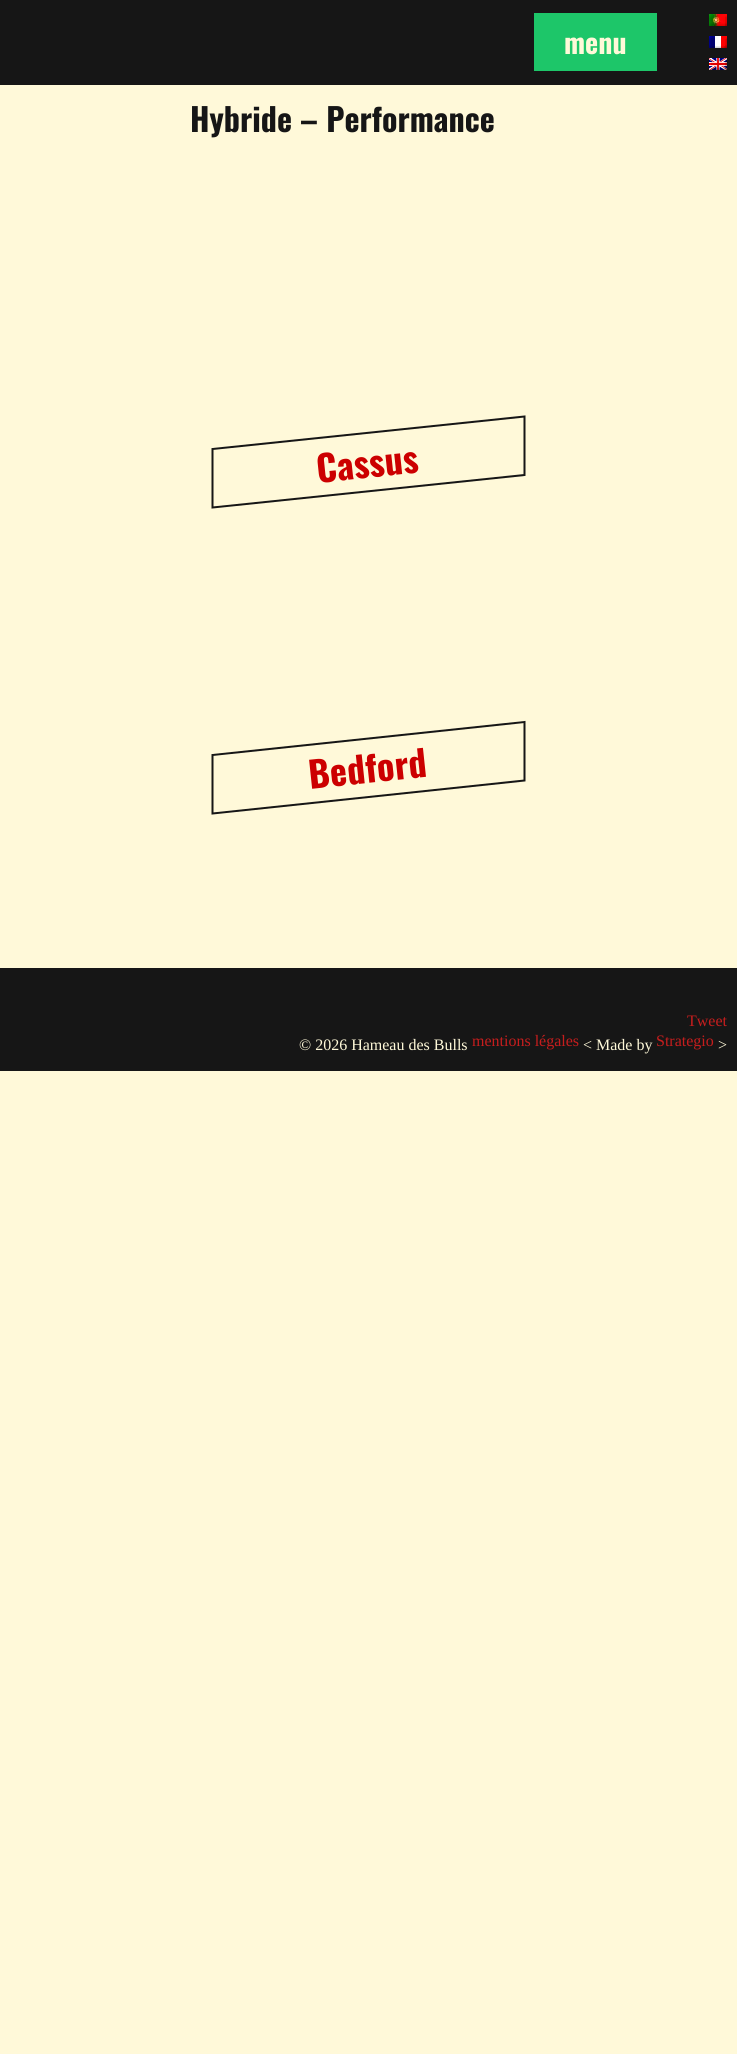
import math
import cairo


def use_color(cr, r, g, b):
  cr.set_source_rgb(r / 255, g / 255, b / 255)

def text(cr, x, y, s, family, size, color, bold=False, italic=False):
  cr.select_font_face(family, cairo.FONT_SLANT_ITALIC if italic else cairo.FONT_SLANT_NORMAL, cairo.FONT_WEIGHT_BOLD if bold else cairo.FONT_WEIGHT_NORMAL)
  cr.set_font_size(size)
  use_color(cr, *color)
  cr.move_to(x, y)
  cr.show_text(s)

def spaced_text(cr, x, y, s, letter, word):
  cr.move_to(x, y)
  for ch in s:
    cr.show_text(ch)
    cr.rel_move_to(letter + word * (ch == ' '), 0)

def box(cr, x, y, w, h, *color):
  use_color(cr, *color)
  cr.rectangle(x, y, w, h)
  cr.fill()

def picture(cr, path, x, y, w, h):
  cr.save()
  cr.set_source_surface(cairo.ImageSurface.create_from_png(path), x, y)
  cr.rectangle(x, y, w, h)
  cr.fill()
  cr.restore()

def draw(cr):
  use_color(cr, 255, 249, 217)
  cr.paint()
  box(cr, 0, 0, 737, 85, 22, 22, 22)
  box(cr, 534, 13, 123, 58, 29, 198, 105)
  picture(cr, "img_01.png", 709, 14, 18, 12)
  picture(cr, "img_02.png", 709, 36, 18, 12)
  picture(cr, "img_03.png", 709, 58, 18, 12)
  cr.new_path()
  cr.move_to(212.5, 449)
  cr.line_to(524.5, 416.5)
  cr.line_to(524.5, 475)
  cr.line_to(212.5, 507.5)
  cr.close_path()
  use_color(cr, 22, 22, 22)
  cr.stroke()
  cr.new_path()
  cr.move_to(212.5, 755)
  cr.line_to(524.5, 722)
  cr.line_to(524.5, 780.5)
  cr.line_to(212.5, 813.5)
  cr.close_path()
  cr.stroke()
  box(cr, 0, 968, 737, 103, 22, 22, 22)
  text(cr, 564, 54, "menu", "Oswald", 28, (255, 249, 217), bold=True)
  text(cr, 190, 132, "Hybride – Performance", "Oswald", 32, (22, 22, 22), bold=True)
  cr.set_font_size(36)
  use_color(cr, 204, 0, 0)
  cr.save()
  cr.translate(318, 483)
  cr.rotate(-6 * math.pi / 180)
  spaced_text(cr, 0, 0, "Cassus", 0.25, 0)
  cr.restore()
  cr.save()
  cr.translate(310, 789)
  cr.rotate(-6 * math.pi / 180)
  spaced_text(cr, 0, 0, "Bedford", 0.25, 0)
  cr.restore()
  text(cr, 687, 1026, "Tweet", "Liberation Serif", 16, (198, 29, 29))
  text(cr, 299, 1050, "© 2026 Hameau des Bulls", "Liberation Serif", 16, (255, 249, 217))
  text(cr, 472, 1046, "mentions légales", "Liberation Serif", 16, (198, 29, 29))
  text(cr, 583, 1050, "< Made by", "Liberation Serif", 16, (255, 249, 217))
  text(cr, 656, 1046, "Strategio", "Liberation Serif", 16, (198, 29, 29))
  text(cr, 718, 1050, ">", "Liberation Serif", 16, (255, 249, 217))


surface = cairo.ImageSurface(cairo.FORMAT_RGB24, 737, 2054)
cr = cairo.Context(surface)
options = cairo.FontOptions()
options.set_hint_metrics(cairo.HINT_METRICS_OFF)
options.set_hint_style(cairo.HINT_STYLE_NONE)
cr.set_font_options(options)
cr.set_miter_limit(4)
draw(cr)
surface.write_to_png("out.png")
